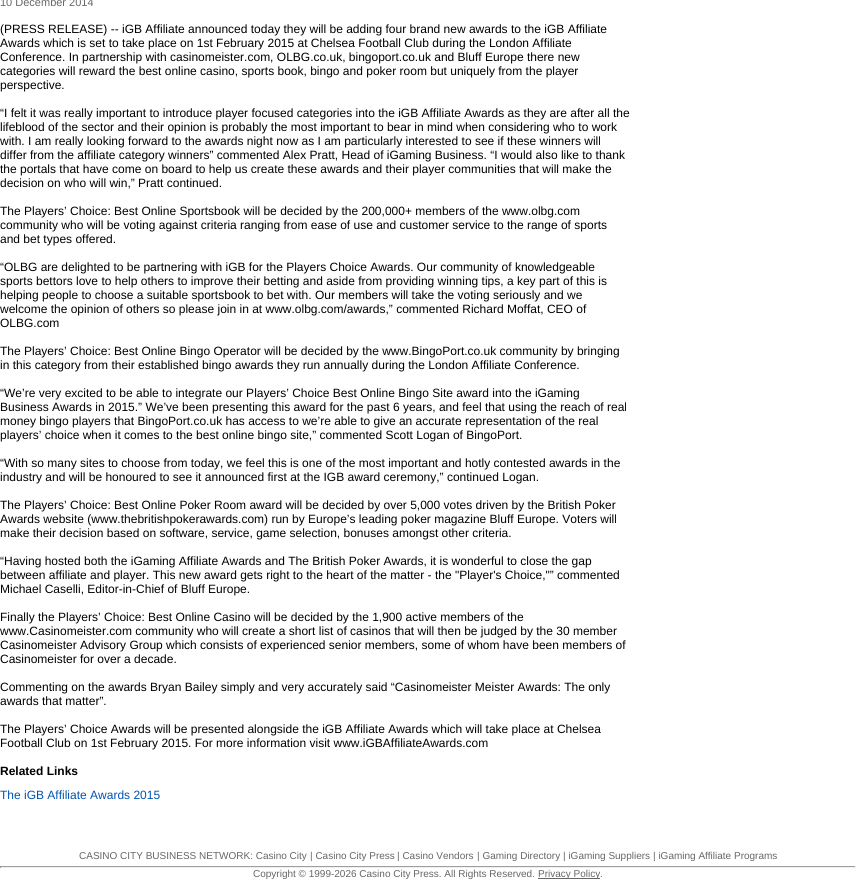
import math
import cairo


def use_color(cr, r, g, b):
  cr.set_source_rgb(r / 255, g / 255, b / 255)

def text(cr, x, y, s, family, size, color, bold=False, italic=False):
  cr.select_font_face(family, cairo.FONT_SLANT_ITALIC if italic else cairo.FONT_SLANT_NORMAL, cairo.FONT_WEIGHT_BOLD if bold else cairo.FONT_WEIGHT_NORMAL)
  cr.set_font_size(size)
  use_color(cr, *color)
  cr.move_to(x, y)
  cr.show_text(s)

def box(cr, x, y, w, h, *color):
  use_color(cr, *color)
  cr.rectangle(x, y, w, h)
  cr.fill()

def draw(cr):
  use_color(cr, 255, 255, 255)
  cr.paint()
  box(cr, 0, 866, 856, 1, 159, 159, 159)
  box(cr, 855, 866, 1, 2, 238, 238, 238)
  box(cr, 0, 867, 856, 1, 238, 238, 238)
  box(cr, 0, 866, 1, 2, 159, 159, 159)
  box(cr, 538, 878, 62, 1, 102, 102, 102)
  text(cr, 0, 6, "10 December 2014", "Liberation Sans", 11, (102, 102, 102))
  text(cr, 0, 33, "(PRESS RELEASE) -- iGB Affiliate announced today they will be adding four brand new awards to the iGB Affiliate", "Liberation Sans", 12, (0, 0, 0))
  text(cr, 0, 47, "Awards which is set to take place on 1st February 2015 at Chelsea Football Club during the London Affiliate", "Liberation Sans", 12, (0, 0, 0))
  text(cr, 0, 61, "Conference. In partnership with casinomeister.com, OLBG.co.uk, bingoport.co.uk and Bluff Europe there new", "Liberation Sans", 12, (0, 0, 0))
  text(cr, 0, 75, "categories will reward the best online casino, sports book, bingo and poker room but uniquely from the player", "Liberation Sans", 12, (0, 0, 0))
  text(cr, 0, 89, "perspective.", "Liberation Sans", 12, (0, 0, 0))
  text(cr, 0, 117, "“I felt it was really important to introduce player focused categories into the iGB Affiliate Awards as they are after all the", "Liberation Sans", 12, (0, 0, 0))
  text(cr, 0, 131, "lifeblood of the sector and their opinion is probably the most important to bear in mind when considering who to work", "Liberation Sans", 12, (0, 0, 0))
  text(cr, 0, 145, "with. I am really looking forward to the awards night now as I am particularly interested to see if these winners will", "Liberation Sans", 12, (0, 0, 0))
  text(cr, 0, 159, "differ from the affiliate category winners” commented Alex Pratt, Head of iGaming Business. “I would also like to thank", "Liberation Sans", 12, (0, 0, 0))
  text(cr, 0, 173, "the portals that have come on board to help us create these awards and their player communities that will make the", "Liberation Sans", 12, (0, 0, 0))
  text(cr, 0, 187, "decision on who will win,” Pratt continued.", "Liberation Sans", 12, (0, 0, 0))
  text(cr, 0, 215, "The Players’ Choice: Best Online Sportsbook will be decided by the 200,000+ members of the www.olbg.com", "Liberation Sans", 12, (0, 0, 0))
  text(cr, 0, 229, "community who will be voting against criteria ranging from ease of use and customer service to the range of sports", "Liberation Sans", 12, (0, 0, 0))
  text(cr, 0, 243, "and bet types offered.", "Liberation Sans", 12, (0, 0, 0))
  text(cr, 0, 271, "“OLBG are delighted to be partnering with iGB for the Players Choice Awards. Our community of knowledgeable", "Liberation Sans", 12, (0, 0, 0))
  text(cr, 0, 285, "sports bettors love to help others to improve their betting and aside from providing winning tips, a key part of this is", "Liberation Sans", 12, (0, 0, 0))
  text(cr, 0, 299, "helping people to choose a suitable sportsbook to bet with. Our members will take the voting seriously and we", "Liberation Sans", 12, (0, 0, 0))
  text(cr, 0, 313, "welcome the opinion of others so please join in at www.olbg.com/awards,” commented Richard Moffat, CEO of", "Liberation Sans", 12, (0, 0, 0))
  text(cr, 0, 327, "OLBG.com", "Liberation Sans", 12, (0, 0, 0))
  text(cr, 0, 355, "The Players’ Choice: Best Online Bingo Operator will be decided by the www.BingoPort.co.uk community by bringing", "Liberation Sans", 12, (0, 0, 0))
  text(cr, 0, 369, "in this category from their established bingo awards they run annually during the London Affiliate Conference.", "Liberation Sans", 12, (0, 0, 0))
  text(cr, 0, 397, "“We’re very excited to be able to integrate our Players’ Choice Best Online Bingo Site award into the iGaming", "Liberation Sans", 12, (0, 0, 0))
  text(cr, 0, 411, "Business Awards in 2015.” We’ve been presenting this award for the past 6 years, and feel that using the reach of real", "Liberation Sans", 12, (0, 0, 0))
  text(cr, 0, 425, "money bingo players that BingoPort.co.uk has access to we’re able to give an accurate representation of the real", "Liberation Sans", 12, (0, 0, 0))
  text(cr, 0, 439, "players’ choice when it comes to the best online bingo site,” commented Scott Logan of BingoPort.", "Liberation Sans", 12, (0, 0, 0))
  text(cr, 0, 467, "“With so many sites to choose from today, we feel this is one of the most important and hotly contested awards in the", "Liberation Sans", 12, (0, 0, 0))
  text(cr, 0, 481, "industry and will be honoured to see it announced first at the IGB award ceremony,” continued Logan.", "Liberation Sans", 12, (0, 0, 0))
  text(cr, 0, 509, "The Players’ Choice: Best Online Poker Room award will be decided by over 5,000 votes driven by the British Poker", "Liberation Sans", 12, (0, 0, 0))
  text(cr, 0, 523, "Awards website (www.thebritishpokerawards.com) run by Europe’s leading poker magazine Bluff Europe. Voters will", "Liberation Sans", 12, (0, 0, 0))
  text(cr, 0, 537, "make their decision based on software, service, game selection, bonuses amongst other criteria.", "Liberation Sans", 12, (0, 0, 0))
  text(cr, 0, 565, "“Having hosted both the iGaming Affiliate Awards and The British Poker Awards, it is wonderful to close the gap", "Liberation Sans", 12, (0, 0, 0))
  text(cr, 0, 579, "between affiliate and player. This new award gets right to the heart of the matter - the \"Player's Choice,\"” commented", "Liberation Sans", 12, (0, 0, 0))
  text(cr, 0, 593, "Michael Caselli, Editor-in-Chief of Bluff Europe.", "Liberation Sans", 12, (0, 0, 0))
  text(cr, 0, 621, "Finally the Players’ Choice: Best Online Casino will be decided by the 1,900 active members of the", "Liberation Sans", 12, (0, 0, 0))
  text(cr, 0, 635, "www.Casinomeister.com community who will create a short list of casinos that will then be judged by the 30 member", "Liberation Sans", 12, (0, 0, 0))
  text(cr, 0, 649, "Casinomeister Advisory Group which consists of experienced senior members, some of whom have been members of", "Liberation Sans", 12, (0, 0, 0))
  text(cr, 0, 663, "Casinomeister for over a decade.", "Liberation Sans", 12, (0, 0, 0))
  text(cr, 0, 691, "Commenting on the awards Bryan Bailey simply and very accurately said “Casinomeister Meister Awards: The only", "Liberation Sans", 12, (0, 0, 0))
  text(cr, 0, 705, "awards that matter”.", "Liberation Sans", 12, (0, 0, 0))
  text(cr, 0, 733, "The Players’ Choice Awards will be presented alongside the iGB Affiliate Awards which will take place at Chelsea", "Liberation Sans", 12, (0, 0, 0))
  text(cr, 0, 747, "Football Club on 1st February 2015. For more information visit www.iGBAffiliateAwards.com", "Liberation Sans", 12, (0, 0, 0))
  text(cr, 0, 775, "Related Links", "Liberation Sans", 12, (0, 0, 0), bold=True)
  text(cr, 0, 799, "The iGB Affiliate Awards 2015", "Liberation Sans", 12, (0, 84, 174))
  text(cr, 79, 859, "CASINO CITY BUSINESS NETWORK: Casino City", "Liberation Sans", 10, (102, 102, 102))
  text(cr, 310, 859, "| Casino City Press", "Liberation Sans", 10, (102, 102, 102))
  text(cr, 397, 859, "| Casino Vendors", "Liberation Sans", 10, (102, 102, 102))
  text(cr, 477, 859, "| Gaming Directory", "Liberation Sans", 10, (102, 102, 102))
  text(cr, 563, 859, "| iGaming Suppliers", "Liberation Sans", 10, (102, 102, 102))
  text(cr, 653, 859, "| iGaming Affiliate Programs", "Liberation Sans", 10, (102, 102, 102))
  text(cr, 253, 877, "Copyright © 1999-2026 Casino City Press. All Rights Reserved.", "Liberation Sans", 10, (102, 102, 102))
  text(cr, 538, 877, "Privacy Policy", "Liberation Sans", 10, (102, 102, 102))
  text(cr, 600, 877, ".", "Liberation Sans", 10, (102, 102, 102))


surface = cairo.ImageSurface(cairo.FORMAT_RGB24, 856, 883)
cr = cairo.Context(surface)
options = cairo.FontOptions()
options.set_hint_metrics(cairo.HINT_METRICS_OFF)
options.set_hint_style(cairo.HINT_STYLE_NONE)
cr.set_font_options(options)
cr.set_miter_limit(4)
draw(cr)
surface.write_to_png("out.png")
